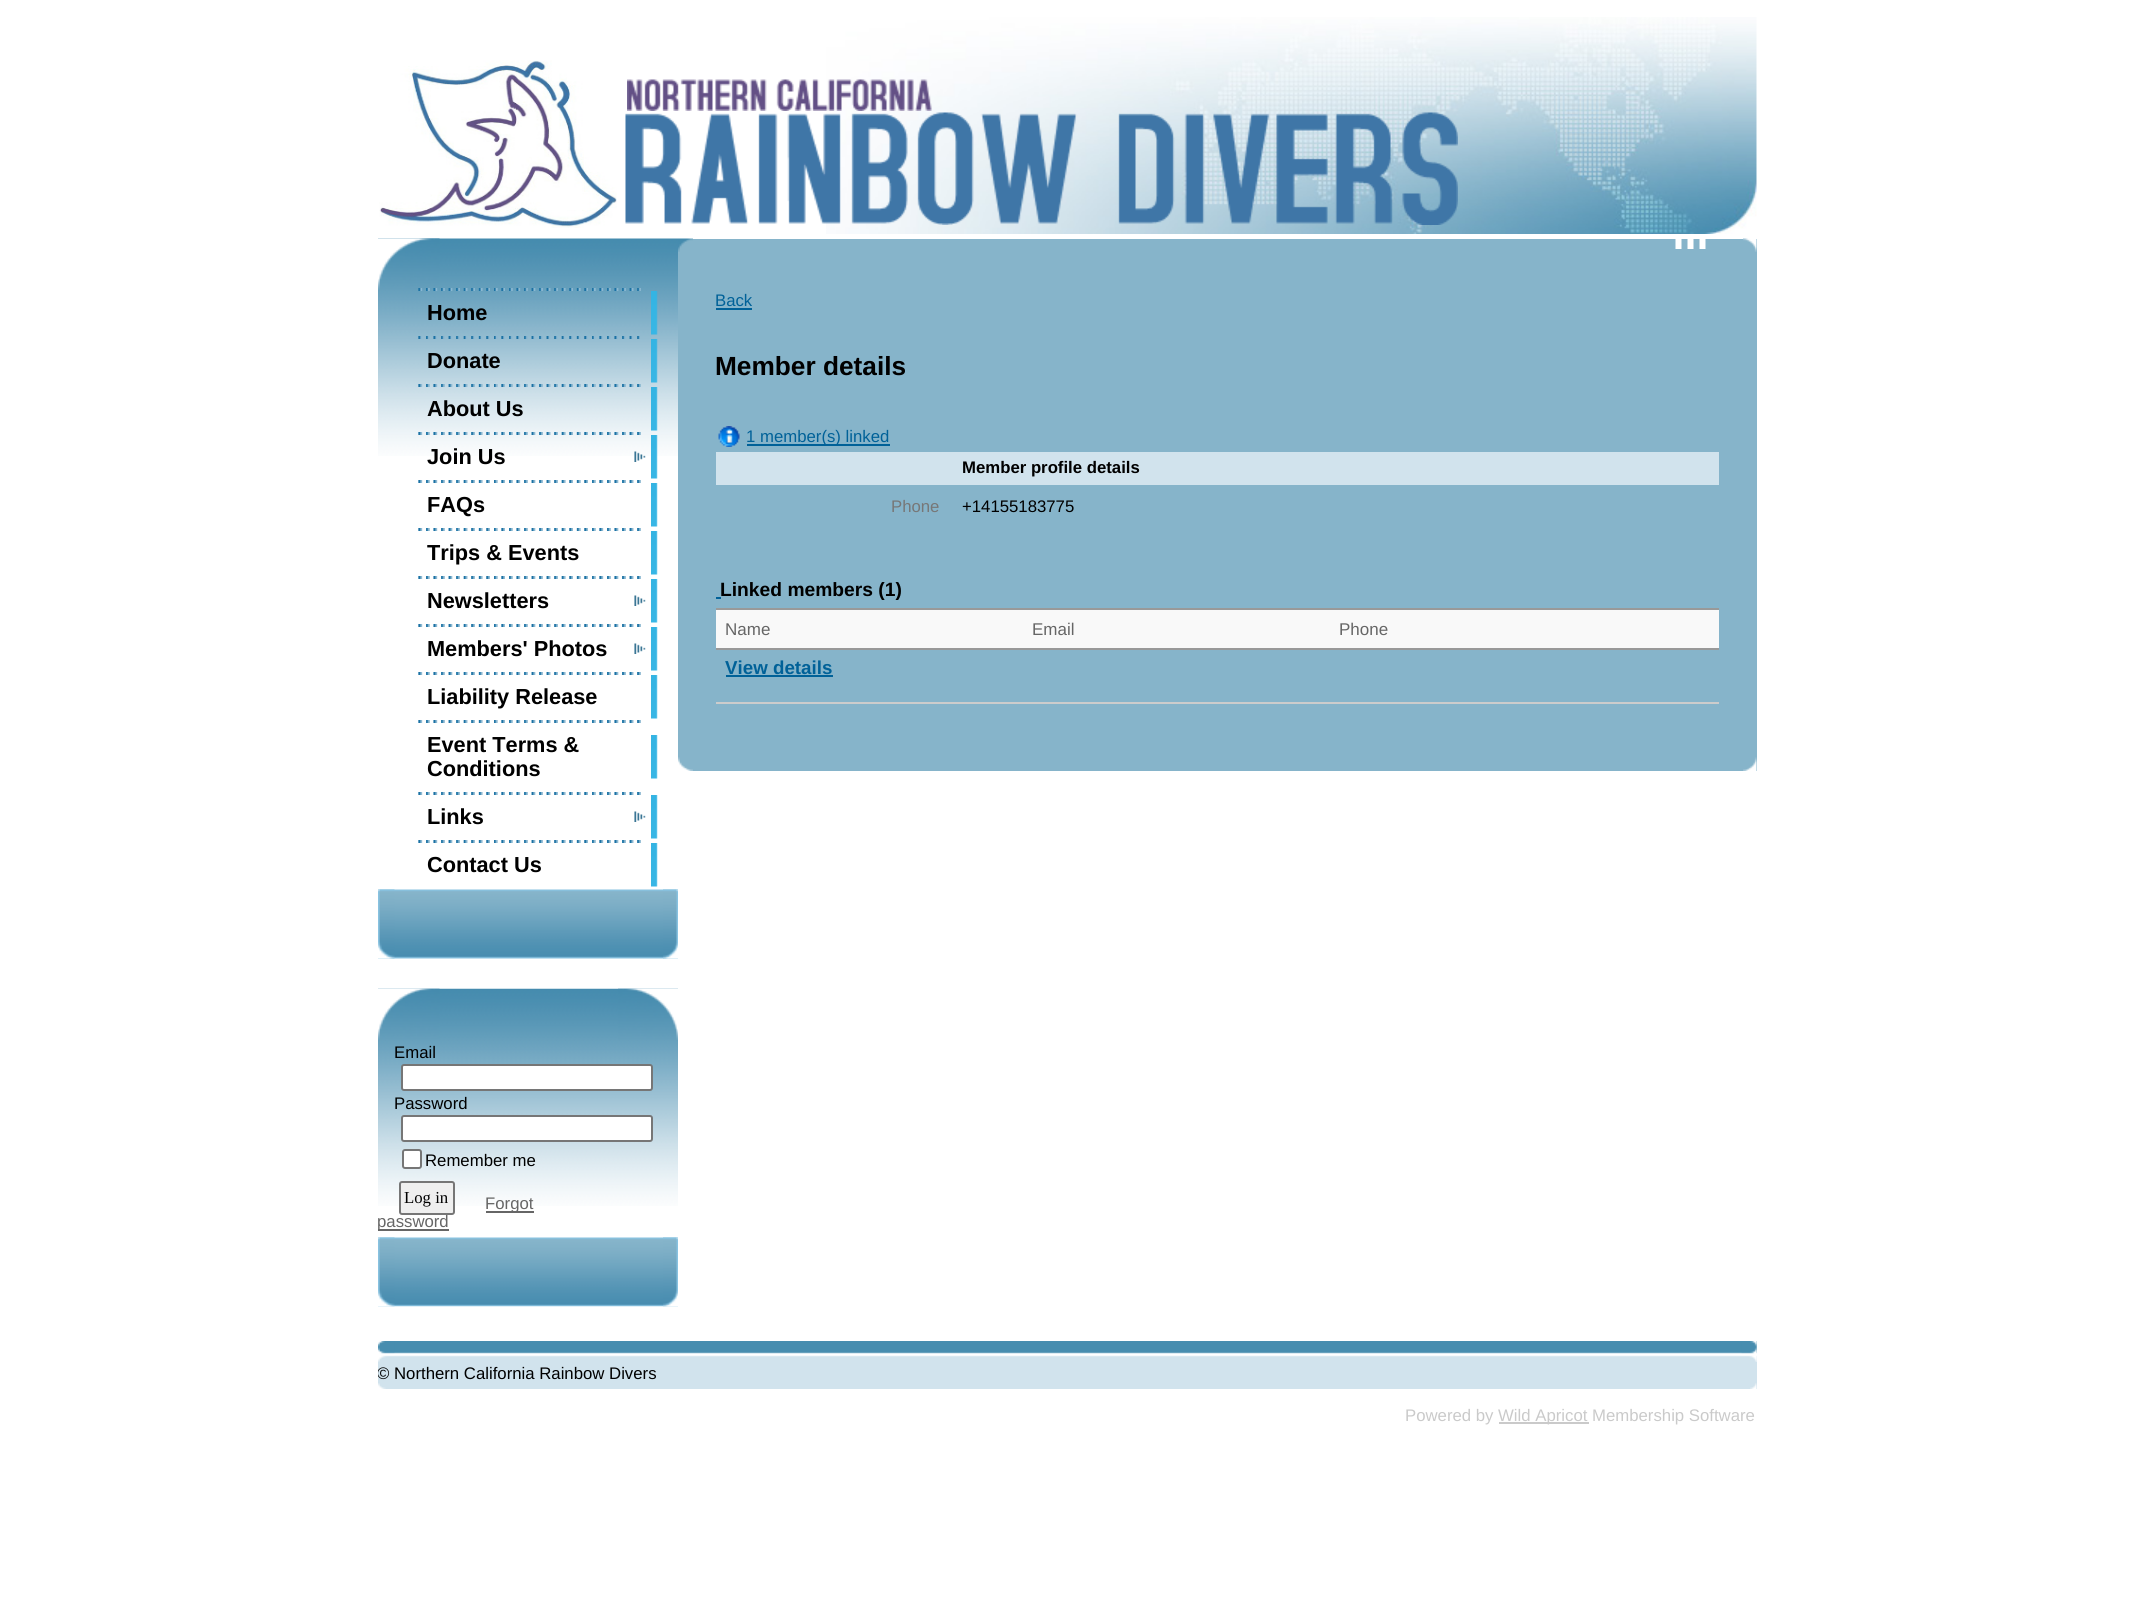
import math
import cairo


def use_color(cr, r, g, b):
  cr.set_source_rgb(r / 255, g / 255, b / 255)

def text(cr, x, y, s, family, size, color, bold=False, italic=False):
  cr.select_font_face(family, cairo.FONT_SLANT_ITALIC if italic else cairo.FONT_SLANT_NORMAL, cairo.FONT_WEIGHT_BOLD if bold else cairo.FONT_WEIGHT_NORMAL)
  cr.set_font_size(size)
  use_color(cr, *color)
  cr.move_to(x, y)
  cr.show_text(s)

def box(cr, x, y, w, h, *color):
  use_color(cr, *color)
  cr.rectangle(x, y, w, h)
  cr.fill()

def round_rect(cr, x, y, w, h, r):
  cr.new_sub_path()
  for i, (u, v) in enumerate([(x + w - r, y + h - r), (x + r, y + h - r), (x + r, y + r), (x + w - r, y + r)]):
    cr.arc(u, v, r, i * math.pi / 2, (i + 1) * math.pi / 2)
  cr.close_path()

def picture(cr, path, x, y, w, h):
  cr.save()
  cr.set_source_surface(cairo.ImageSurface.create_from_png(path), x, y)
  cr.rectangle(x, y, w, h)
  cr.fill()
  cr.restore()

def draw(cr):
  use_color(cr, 255, 255, 255)
  cr.paint()
  picture(cr, "img_01.png", 826, 17, 931, 217)
  picture(cr, "img_02.png", 379, 60, 238, 168)
  picture(cr, "img_03.png", 627, 79, 305, 32)
  picture(cr, "img_04.png", 625, 112, 833, 113)
  picture(cr, "img_05.png", 378, 238, 300, 218)
  picture(cr, "img_06.png", 378, 889, 300, 70)
  picture(cr, "img_07.png", 378, 238, 62, 52)
  picture(cr, "img_08.png", 663, 889, 15, 70)
  picture(cr, "img_09.png", 378, 889, 17, 70)
  picture(cr, "img_10.png", 651, 291, 7, 44)
  picture(cr, "img_11.png", 418, 288, 223, 3)
  picture(cr, "img_12.png", 418, 288, 223, 3)
  picture(cr, "img_13.png", 418, 288, 223, 3)
  picture(cr, "img_14.png", 651, 339, 7, 44)
  picture(cr, "img_15.png", 418, 336, 222, 3)
  picture(cr, "img_16.png", 418, 336, 220, 3)
  picture(cr, "img_17.png", 418, 336, 220, 3)
  picture(cr, "img_18.png", 651, 387, 7, 44)
  picture(cr, "img_19.png", 418, 384, 223, 3)
  picture(cr, "img_20.png", 418, 384, 223, 3)
  picture(cr, "img_21.png", 418, 384, 223, 3)
  picture(cr, "img_22.png", 651, 435, 7, 44)
  picture(cr, "img_23.png", 418, 432, 223, 3)
  picture(cr, "img_24.png", 418, 432, 223, 3)
  picture(cr, "img_25.png", 634, 451, 12, 11)
  picture(cr, "img_26.png", 418, 432, 223, 3)
  picture(cr, "img_27.png", 651, 483, 7, 44)
  picture(cr, "img_28.png", 418, 480, 223, 3)
  picture(cr, "img_29.png", 418, 480, 223, 3)
  picture(cr, "img_30.png", 418, 480, 223, 3)
  picture(cr, "img_27.png", 651, 531, 7, 44)
  picture(cr, "img_28.png", 418, 528, 223, 3)
  picture(cr, "img_29.png", 418, 528, 223, 3)
  picture(cr, "img_30.png", 418, 528, 223, 3)
  picture(cr, "img_27.png", 651, 579, 7, 44)
  picture(cr, "img_28.png", 418, 576, 223, 3)
  picture(cr, "img_29.png", 418, 576, 223, 3)
  picture(cr, "img_31.png", 634, 595, 12, 11)
  picture(cr, "img_30.png", 418, 576, 223, 3)
  picture(cr, "img_27.png", 651, 627, 7, 44)
  picture(cr, "img_28.png", 418, 624, 223, 3)
  picture(cr, "img_29.png", 418, 624, 223, 3)
  picture(cr, "img_31.png", 634, 643, 12, 11)
  picture(cr, "img_30.png", 418, 624, 223, 3)
  picture(cr, "img_27.png", 651, 675, 7, 44)
  picture(cr, "img_28.png", 418, 672, 223, 3)
  picture(cr, "img_29.png", 418, 672, 223, 3)
  picture(cr, "img_30.png", 418, 672, 223, 3)
  picture(cr, "img_27.png", 651, 735, 7, 44)
  picture(cr, "img_28.png", 418, 720, 223, 3)
  picture(cr, "img_29.png", 418, 720, 223, 3)
  picture(cr, "img_30.png", 418, 720, 223, 3)
  picture(cr, "img_27.png", 651, 795, 7, 44)
  picture(cr, "img_28.png", 418, 792, 223, 3)
  picture(cr, "img_29.png", 418, 792, 223, 3)
  picture(cr, "img_31.png", 634, 811, 12, 11)
  picture(cr, "img_30.png", 418, 792, 223, 3)
  picture(cr, "img_27.png", 651, 843, 7, 44)
  picture(cr, "img_28.png", 418, 840, 223, 3)
  picture(cr, "img_29.png", 418, 840, 223, 3)
  picture(cr, "img_30.png", 418, 840, 223, 3)
  picture(cr, "img_32.png", 378, 988, 300, 218)
  picture(cr, "img_33.png", 378, 1237, 300, 70)
  picture(cr, "img_34.png", 378, 988, 62, 52)
  picture(cr, "img_35.png", 618, 988, 60, 52)
  picture(cr, "img_36.png", 663, 1237, 15, 70)
  picture(cr, "img_37.png", 378, 1237, 17, 70)
  use_color(cr, 255, 255, 255)
  round_rect(cr, 402, 1065, 250, 25, 2)
  cr.fill_preserve()
  use_color(cr, 118, 118, 118)
  cr.stroke()
  use_color(cr, 255, 255, 255)
  round_rect(cr, 402, 1116, 250, 25, 2)
  cr.fill_preserve()
  use_color(cr, 118, 118, 118)
  cr.stroke()
  use_color(cr, 255, 255, 255)
  round_rect(cr, 403, 1150, 18, 18, 2)
  cr.fill_preserve()
  use_color(cr, 118, 118, 118)
  cr.stroke()
  box(cr, 486, 1211, 48, 2, 102, 102, 102)
  box(cr, 378, 1229, 71, 2, 102, 102, 102)
  box(cr, 678, 239, 1079, 532, 134, 180, 202)
  picture(cr, "img_38.png", 1675, 239, 31, 10)
  picture(cr, "img_39.png", 678, 238, 15, 14)
  picture(cr, "img_40.png", 1743, 238, 14, 14)
  picture(cr, "img_41.png", 1743, 757, 14, 14)
  picture(cr, "img_42.png", 678, 757, 15, 14)
  box(cr, 716, 308, 36, 2, 0, 97, 152)
  picture(cr, "img_43.png", 718, 426, 22, 21)
  box(cr, 747, 444, 143, 2, 0, 97, 152)
  box(cr, 716, 452, 1003, 33, 209, 227, 237)
  box(cr, 716, 597, 5, 2, 0, 97, 152)
  box(cr, 716, 702, 1003, 2, 204, 204, 204)
  box(cr, 716, 610, 1003, 38, 249, 249, 249)
  box(cr, 716, 608, 1003, 2, 153, 153, 153)
  box(cr, 716, 648, 1003, 2, 153, 153, 153)
  box(cr, 726, 675, 107, 2, 0, 97, 152)
  picture(cr, "img_44.png", 394, 1341, 1363, 21)
  picture(cr, "img_45.png", 378, 1341, 17, 21)
  picture(cr, "img_46.png", 1741, 1341, 16, 21)
  box(cr, 378, 1362, 1379, 27, 209, 227, 237)
  picture(cr, "img_47.png", 1750, 1383, 7, 6)
  picture(cr, "img_48.png", 378, 1383, 8, 6)
  box(cr, 1499, 1422, 90, 2, 202, 202, 202)
  text(cr, 427, 320, "Home", "Liberation Sans", 21.75, (0, 0, 0), bold=True)
  text(cr, 427, 368, "Donate", "Liberation Sans", 21.75, (0, 0, 0), bold=True)
  text(cr, 427, 416, "About Us", "Liberation Sans", 21.75, (0, 0, 0), bold=True)
  text(cr, 427, 464, "Join Us", "Liberation Sans", 21.75, (0, 0, 0), bold=True)
  text(cr, 427, 512, "FAQs", "Liberation Sans", 21.75, (0, 0, 0), bold=True)
  text(cr, 427, 560, "Trips & Events", "Liberation Sans", 21.75, (0, 0, 0), bold=True)
  text(cr, 427, 608, "Newsletters", "Liberation Sans", 21.75, (0, 0, 0), bold=True)
  text(cr, 427, 656, "Members' Photos", "Liberation Sans", 21.75, (0, 0, 0), bold=True)
  text(cr, 427, 704, "Liability Release", "Liberation Sans", 21.75, (0, 0, 0), bold=True)
  text(cr, 427, 752, "Event Terms &", "Liberation Sans", 21.75, (0, 0, 0), bold=True)
  text(cr, 427, 776, "Conditions", "Liberation Sans", 21.75, (0, 0, 0), bold=True)
  text(cr, 427, 824, "Links", "Liberation Sans", 21.75, (0, 0, 0), bold=True)
  text(cr, 427, 872, "Contact Us", "Liberation Sans", 21.75, (0, 0, 0), bold=True)
  text(cr, 394, 1058, "Email", "Liberation Sans", 16.75, (0, 0, 0))
  text(cr, 394, 1109, "Password", "Liberation Sans", 16.75, (0, 0, 0))
  text(cr, 425, 1166, "Remember me", "Liberation Sans", 16.75, (0, 0, 0))
  text(cr, 485, 1209, "Forgot", "Liberation Sans", 16.75, (102, 102, 102))
  text(cr, 377, 1227, "password", "Liberation Sans", 16.75, (102, 102, 102))
  use_color(cr, 239, 239, 239)
  round_rect(cr, 400, 1182, 54, 32, 2)
  cr.fill_preserve()
  use_color(cr, 118, 118, 118)
  cr.stroke()
  text(cr, 404, 1203, "Log in", "Liberation Serif", 16.75, (0, 0, 0))
  text(cr, 715, 306, "Back", "Liberation Sans", 16.75, (0, 97, 152))
  text(cr, 715, 375, "Member details", "Liberation Sans", 26.25, (0, 0, 0), bold=True)
  text(cr, 746, 442, "1 member(s) linked", "Liberation Sans", 16.75, (0, 97, 152))
  text(cr, 962, 473, "Member profile details", "Liberation Sans", 16.75, (0, 0, 0), bold=True)
  text(cr, 891, 512, "Phone", "Liberation Sans", 16.75, (119, 119, 119))
  text(cr, 962, 512, "+14155183775", "Liberation Sans", 16.75, (0, 0, 0))
  text(cr, 720, 596, "Linked members (1)", "Liberation Sans", 19.25, (0, 0, 0), bold=True)
  text(cr, 725, 635, "Name", "Liberation Sans", 17, (102, 102, 102))
  text(cr, 1032, 635, "Email", "Liberation Sans", 17, (102, 102, 102))
  text(cr, 1339, 635, "Phone", "Liberation Sans", 17, (102, 102, 102))
  text(cr, 725, 674, "View details", "Liberation Sans", 18.75, (0, 97, 152), bold=True)
  cr.save()
  cr.rectangle(378, 1364, 1379, 18)
  cr.clip()
  text(cr, 377, 1379, "© Northern California Rainbow Divers", "Liberation Sans", 16.75, (0, 0, 0))
  cr.restore()
  text(cr, 1405, 1421, "Powered by", "Liberation Sans", 16.75, (202, 202, 202))
  text(cr, 1498, 1421, "Wild Apricot Membership Software", "Liberation Sans", 16.75, (202, 202, 202))


surface = cairo.ImageSurface(cairo.FORMAT_RGB24, 2133, 1623)
cr = cairo.Context(surface)
options = cairo.FontOptions()
options.set_hint_metrics(cairo.HINT_METRICS_OFF)
options.set_hint_style(cairo.HINT_STYLE_NONE)
cr.set_font_options(options)
cr.set_miter_limit(4)
draw(cr)
surface.write_to_png("out.png")
